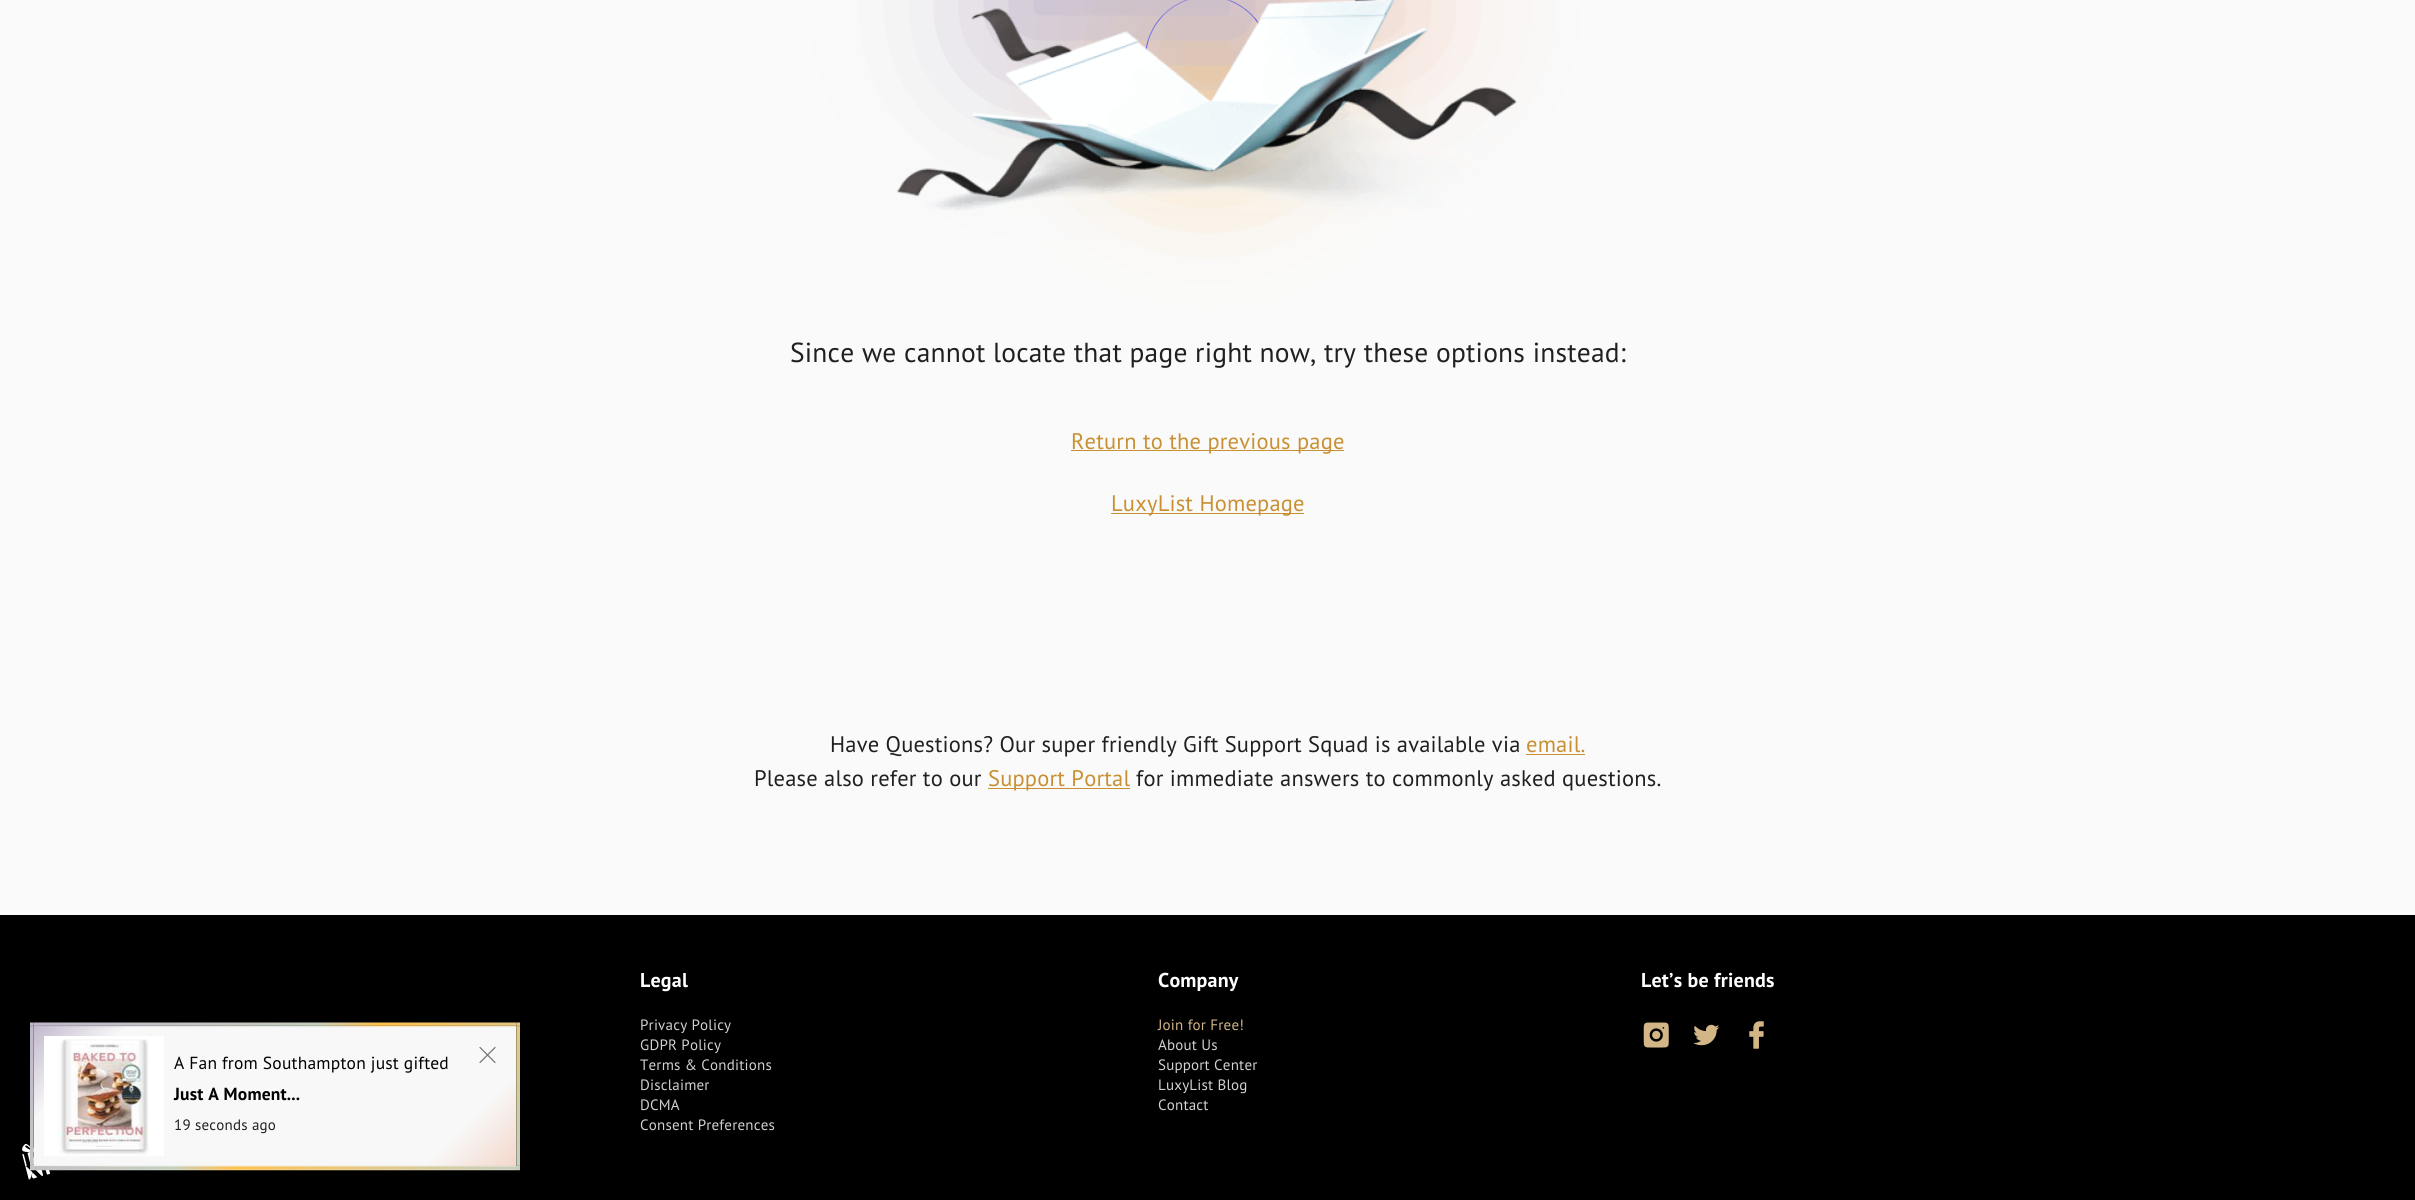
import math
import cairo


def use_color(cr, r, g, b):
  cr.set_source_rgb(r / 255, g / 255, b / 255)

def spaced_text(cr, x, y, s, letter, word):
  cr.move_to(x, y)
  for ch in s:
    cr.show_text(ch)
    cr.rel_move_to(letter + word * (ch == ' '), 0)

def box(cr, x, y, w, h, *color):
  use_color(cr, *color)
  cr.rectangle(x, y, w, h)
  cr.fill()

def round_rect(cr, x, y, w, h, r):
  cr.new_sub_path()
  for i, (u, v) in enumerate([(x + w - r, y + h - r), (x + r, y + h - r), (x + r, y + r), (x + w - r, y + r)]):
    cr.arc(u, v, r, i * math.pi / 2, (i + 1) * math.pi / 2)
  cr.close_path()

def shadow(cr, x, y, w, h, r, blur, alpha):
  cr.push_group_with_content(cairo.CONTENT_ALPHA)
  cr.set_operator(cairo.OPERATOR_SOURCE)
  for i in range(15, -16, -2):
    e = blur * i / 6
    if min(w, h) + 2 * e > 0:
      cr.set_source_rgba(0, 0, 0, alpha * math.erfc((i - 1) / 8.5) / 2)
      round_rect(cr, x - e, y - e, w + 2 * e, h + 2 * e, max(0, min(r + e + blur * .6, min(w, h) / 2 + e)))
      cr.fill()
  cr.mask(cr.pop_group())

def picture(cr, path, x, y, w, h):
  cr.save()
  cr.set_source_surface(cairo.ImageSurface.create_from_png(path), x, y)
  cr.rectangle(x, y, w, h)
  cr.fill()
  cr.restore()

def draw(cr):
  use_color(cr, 250, 250, 250)
  cr.paint()
  box(cr, 0, 915, 2415, 285, 0, 0, 0)
  picture(cr, "img_08.png", 22, 1144, 28, 36)
  gradient = cairo.LinearGradient(119, 941, 431, 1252)
  gradient.add_color_stop_rgba(0, 0.761, 0.722, 0.8, 1)
  gradient.add_color_stop_rgba(0.15, 0.973, 0.973, 0.973, 1)
  gradient.add_color_stop_rgba(0.85, 0.973, 0.973, 0.973, 1)
  gradient.add_color_stop_rgba(1, 0.953, 0.843, 0.788, 1)
  cr.set_source(gradient)
  cr.rectangle(34, 1026, 482, 140)
  cr.fill()
  gradient = cairo.LinearGradient(-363, 1081, -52, 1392)
  gradient.add_color_stop_rgba(0, 0.761, 0.722, 0.8, 1)
  gradient.add_color_stop_rgba(0.15, 0.973, 0.973, 0.973, 1)
  gradient.add_color_stop_rgba(0.85, 0.973, 0.973, 0.973, 1)
  gradient.add_color_stop_rgba(1, 0.953, 0.843, 0.788, 1)
  cr.set_source(gradient)
  cr.rectangle(30, 1166, 4, 4)
  cr.fill()
  gradient = cairo.LinearGradient(119, 1081, 431, 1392)
  gradient.add_color_stop_rgba(0, 0.761, 0.722, 0.8, 1)
  gradient.add_color_stop_rgba(0.15, 0.973, 0.973, 0.973, 1)
  gradient.add_color_stop_rgba(0.85, 0.973, 0.973, 0.973, 1)
  gradient.add_color_stop_rgba(1, 0.953, 0.843, 0.788, 1)
  cr.set_source(gradient)
  cr.rectangle(34, 1166, 482, 4)
  cr.fill()
  gradient = cairo.LinearGradient(602, 1081, 913, 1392)
  gradient.add_color_stop_rgba(0, 0.761, 0.722, 0.8, 1)
  gradient.add_color_stop_rgba(0.15, 0.973, 0.973, 0.973, 1)
  gradient.add_color_stop_rgba(0.85, 0.973, 0.973, 0.973, 1)
  gradient.add_color_stop_rgba(1, 0.953, 0.843, 0.788, 1)
  cr.set_source(gradient)
  cr.rectangle(516, 1166, 4, 4)
  cr.fill()
  picture(cr, "img_01.png", 30, 1022, 490, 149)
  box(cr, 44, 1036, 120, 120, 255, 255, 255)
  picture(cr, "img_02.png", 57, 1039, 92, 116)
  picture(cr, "img_03.png", 479, 1047, 17, 16)
  use_color(cr, 255, 194, 81)
  shadow(cr, 1145, -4, 125, 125, 62.5, 75, 1)
  use_color(cr, 243, 215, 201)
  shadow(cr, 1146, -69, 273, 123, 0, 75, 1)
  cr.arc(1207.5, 58.5, 62, 0, 2 * math.pi)
  use_color(cr, 0, 0, 255)
  cr.set_line_width(1)
  cr.stroke()
  use_color(cr, 194, 184, 204)
  shadow(cr, 996, -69, 272, 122, 0, 75, 1)
  picture(cr, "img_04.png", 897, 0, 620, 212)
  box(cr, 1071, 450, 273, 1, 200, 144, 50)
  box(cr, 1111, 513, 193, 1, 200, 144, 50)
  box(cr, 1526, 754, 59, 1, 200, 144, 50)
  box(cr, 988, 788, 142, 1, 200, 144, 50)
  picture(cr, "img_05.png", 1643, 1022, 26, 26)
  picture(cr, "img_06.png", 1693, 1024, 27, 22)
  picture(cr, "img_07.png", 1749, 1021, 15, 28)
  cr.select_font_face("PT Sans")
  cr.set_font_size(17.5)
  use_color(cr, 0, 0, 0)
  spaced_text(cr, 174, 1069, "A Fan from Southampton just gifted", 0.2, 0)
  cr.select_font_face("PT Sans", cairo.FONT_SLANT_NORMAL, cairo.FONT_WEIGHT_BOLD)
  spaced_text(cr, 174, 1100, "Just A Moment...", 0.2, 0)
  cr.select_font_face("PT Sans")
  cr.set_font_size(15)
  use_color(cr, 33, 32, 32)
  spaced_text(cr, 174, 1130, "19 seconds ago", 0.2, 0)
  cr.set_font_size(27.5)
  spaced_text(cr, 790, 362, "Since we cannot locate that page right now, try these options instead:", 0.2, 0)
  cr.set_font_size(22.5)
  use_color(cr, 200, 144, 50)
  spaced_text(cr, 1071, 449, "Return to the previous page", 0.2, 0)
  spaced_text(cr, 1111, 511, "LuxyList Homepage", 0.2, 0)
  use_color(cr, 33, 32, 32)
  spaced_text(cr, 830, 752, "Have Questions? Our super friendly Gift Support Squad is available via", 0.2, 0)
  use_color(cr, 200, 144, 50)
  spaced_text(cr, 1526, 752, "email.", 0.2, 0)
  use_color(cr, 33, 32, 32)
  spaced_text(cr, 754, 786, "Please also refer to our", 0.2, 0)
  use_color(cr, 200, 144, 50)
  spaced_text(cr, 988, 786, "Support Portal", 0.2, 0)
  use_color(cr, 33, 32, 32)
  spaced_text(cr, 1136, 786, "for immediate answers to commonly asked questions.", 0.2, 0)
  cr.select_font_face("PT Sans", cairo.FONT_SLANT_NORMAL, cairo.FONT_WEIGHT_BOLD)
  cr.set_font_size(20)
  use_color(cr, 255, 255, 255)
  spaced_text(cr, 640, 987, "Legal", 0.2, 0)
  cr.select_font_face("PT Sans")
  cr.set_font_size(15)
  use_color(cr, 209, 209, 209)
  spaced_text(cr, 640, 1030, "Privacy Policy", 0.2, 0)
  spaced_text(cr, 640, 1050, "GDPR Policy", 0.2, 0)
  spaced_text(cr, 640, 1070, "Terms & Conditions", 0.2, 0)
  spaced_text(cr, 640, 1090, "Disclaimer", 0.2, 0)
  spaced_text(cr, 640, 1110, "DCMA", 0.2, 0)
  spaced_text(cr, 640, 1130, "Consent Preferences", 0.2, 0)
  cr.select_font_face("PT Sans", cairo.FONT_SLANT_NORMAL, cairo.FONT_WEIGHT_BOLD)
  cr.set_font_size(20)
  use_color(cr, 255, 255, 255)
  spaced_text(cr, 1158, 987, "Company", 0.2, 0)
  cr.select_font_face("PT Sans")
  cr.set_font_size(15)
  use_color(cr, 210, 182, 134)
  spaced_text(cr, 1158, 1030, "Join for Free!", 0.2, 0)
  use_color(cr, 209, 209, 209)
  spaced_text(cr, 1158, 1050, "About Us", 0.2, 0)
  spaced_text(cr, 1158, 1070, "Support Center", 0.2, 0)
  spaced_text(cr, 1158, 1090, "LuxyList Blog", 0.2, 0)
  spaced_text(cr, 1158, 1110, "Contact", 0.2, 0)
  cr.select_font_face("PT Sans", cairo.FONT_SLANT_NORMAL, cairo.FONT_WEIGHT_BOLD)
  cr.set_font_size(20)
  use_color(cr, 255, 255, 255)
  spaced_text(cr, 1641, 987, "Let’s be friends", 0.2, 0)


surface = cairo.ImageSurface(cairo.FORMAT_RGB24, 2415, 1200)
cr = cairo.Context(surface)
options = cairo.FontOptions()
options.set_hint_metrics(cairo.HINT_METRICS_OFF)
options.set_hint_style(cairo.HINT_STYLE_NONE)
cr.set_font_options(options)
cr.set_miter_limit(4)
draw(cr)
surface.write_to_png("out.png")
